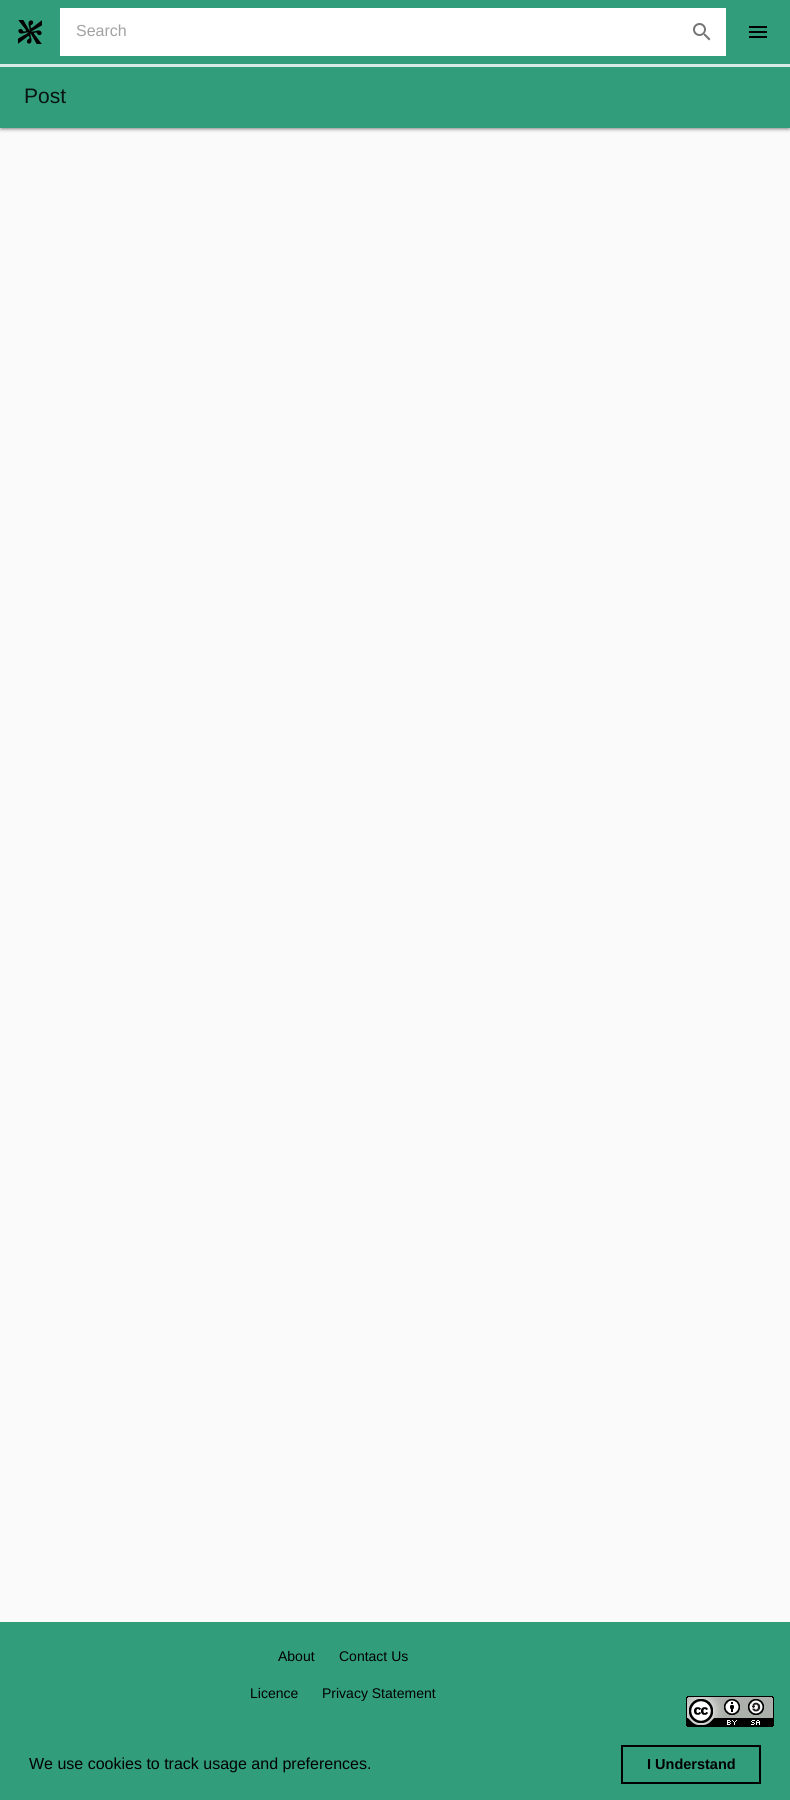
import math
import cairo


def use_color(cr, r, g, b):
  cr.set_source_rgb(r / 255, g / 255, b / 255)

def text(cr, x, y, s, family, size, color, bold=False, italic=False):
  cr.select_font_face(family, cairo.FONT_SLANT_ITALIC if italic else cairo.FONT_SLANT_NORMAL, cairo.FONT_WEIGHT_BOLD if bold else cairo.FONT_WEIGHT_NORMAL)
  cr.set_font_size(size)
  use_color(cr, *color)
  cr.move_to(x, y)
  cr.show_text(s)

def box(cr, x, y, w, h, *color):
  use_color(cr, *color)
  cr.rectangle(x, y, w, h)
  cr.fill()

def round_rect(cr, x, y, w, h, r):
  cr.new_sub_path()
  for i, (u, v) in enumerate([(x + w - r, y + h - r), (x + r, y + h - r), (x + r, y + r), (x + w - r, y + r)]):
    cr.arc(u, v, r, i * math.pi / 2, (i + 1) * math.pi / 2)
  cr.close_path()

def shadow(cr, x, y, w, h, r, blur, alpha):
  cr.push_group_with_content(cairo.CONTENT_ALPHA)
  cr.set_operator(cairo.OPERATOR_SOURCE)
  for i in range(15, -16, -2):
    e = blur * i / 6
    if min(w, h) + 2 * e > 0:
      cr.set_source_rgba(0, 0, 0, alpha * math.erfc((i - 1) / 8.5) / 2)
      round_rect(cr, x - e, y - e, w + 2 * e, h + 2 * e, max(0, min(r + e + blur * .6, min(w, h) / 2 + e)))
      cr.fill()
  cr.mask(cr.pop_group())

def picture(cr, path, x, y, w, h):
  cr.save()
  cr.set_source_surface(cairo.ImageSurface.create_from_png(path), x, y)
  cr.rectangle(x, y, w, h)
  cr.fill()
  cr.restore()

def draw(cr):
  use_color(cr, 250, 250, 250)
  cr.paint()
  use_color(cr, 0, 0, 0)
  shadow(cr, 2, 69, 786, 60, 0, 0.5, 0.12)
  shadow(cr, 0, 66, 790, 64, 0, 1, 0.14)
  shadow(cr, 0, 65, 790, 64, 0, 2.5, 0.2)
  use_color(cr, 214, 235, 229)
  cr.set_fill_rule(cairo.FILL_RULE_EVEN_ODD)
  cr.new_path()
  cr.move_to(-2, -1)
  cr.line_to(-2, 67)
  cr.line_to(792, 67)
  cr.line_to(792, -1)
  cr.close_path()
  cr.move_to(0, 0)
  cr.line_to(0, 64)
  cr.line_to(790, 64)
  cr.line_to(790, 0)
  cr.close_path()
  cr.fill()
  box(cr, 0, 0, 790, 64, 50, 157, 123)
  picture(cr, "img_01.png", 18, 20, 24, 24)
  box(cr, 60, 8, 666, 48, 255, 255, 255)
  picture(cr, "img_02.png", 693, 23, 18, 18)
  picture(cr, "img_03.png", 749, 26, 18, 12)
  box(cr, 0, 67, 790, 61, 50, 157, 123)
  box(cr, 0, 1622, 790, 178, 50, 157, 123)
  picture(cr, "img_04.png", 686, 1696, 88, 31)
  cr.rectangle(622, 1746, 138, 37)
  use_color(cr, 0, 0, 0)
  cr.stroke()
  text(cr, 76, 36, "Search", "Liberation Sans", 16, (162, 162, 162))
  text(cr, 24, 103, "Post", "Liberation Sans", 21, (7, 20, 16))
  text(cr, 278, 1661, "About", "Liberation Sans", 14, (0, 0, 0))
  text(cr, 339, 1661, "Contact Us", "Liberation Sans", 14, (0, 0, 0))
  text(cr, 250, 1698, "Licence", "Liberation Sans", 14, (0, 0, 0))
  text(cr, 322, 1698, "Privacy Statement", "Liberation Sans", 14, (0, 0, 0))
  text(cr, 29, 1769, "We use cookies to track usage and preferences.", "Liberation Sans", 16, (0, 0, 0))
  text(cr, 647, 1769, "I Understand", "Liberation Sans", 14.5, (0, 0, 0), bold=True)


surface = cairo.ImageSurface(cairo.FORMAT_RGB24, 790, 1800)
cr = cairo.Context(surface)
options = cairo.FontOptions()
options.set_hint_metrics(cairo.HINT_METRICS_OFF)
options.set_hint_style(cairo.HINT_STYLE_NONE)
cr.set_font_options(options)
cr.set_miter_limit(4)
draw(cr)
surface.write_to_png("out.png")
